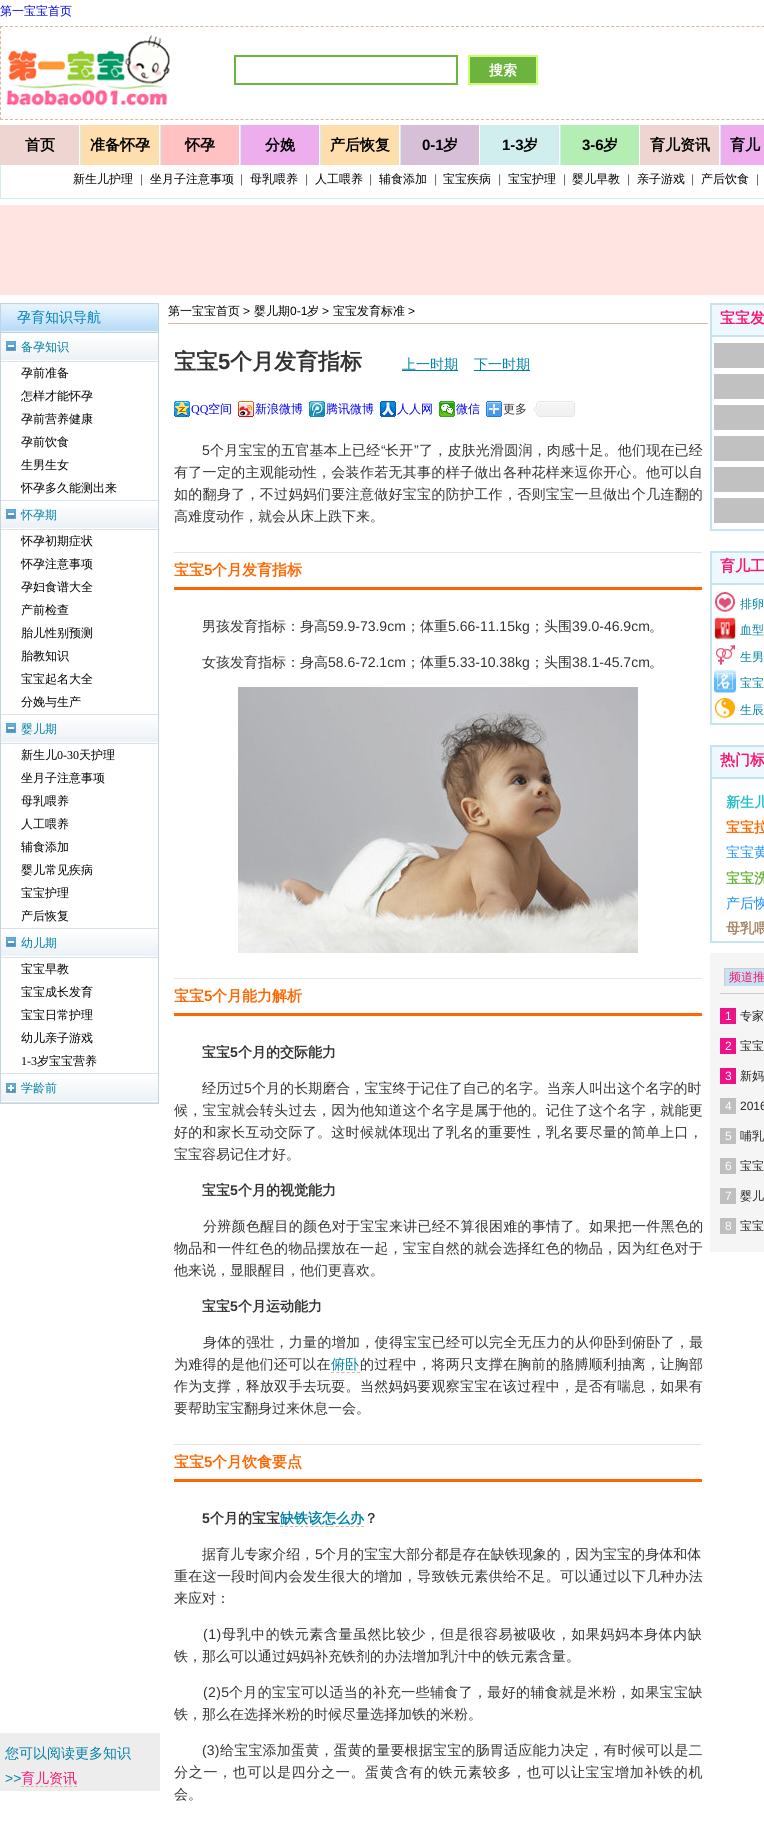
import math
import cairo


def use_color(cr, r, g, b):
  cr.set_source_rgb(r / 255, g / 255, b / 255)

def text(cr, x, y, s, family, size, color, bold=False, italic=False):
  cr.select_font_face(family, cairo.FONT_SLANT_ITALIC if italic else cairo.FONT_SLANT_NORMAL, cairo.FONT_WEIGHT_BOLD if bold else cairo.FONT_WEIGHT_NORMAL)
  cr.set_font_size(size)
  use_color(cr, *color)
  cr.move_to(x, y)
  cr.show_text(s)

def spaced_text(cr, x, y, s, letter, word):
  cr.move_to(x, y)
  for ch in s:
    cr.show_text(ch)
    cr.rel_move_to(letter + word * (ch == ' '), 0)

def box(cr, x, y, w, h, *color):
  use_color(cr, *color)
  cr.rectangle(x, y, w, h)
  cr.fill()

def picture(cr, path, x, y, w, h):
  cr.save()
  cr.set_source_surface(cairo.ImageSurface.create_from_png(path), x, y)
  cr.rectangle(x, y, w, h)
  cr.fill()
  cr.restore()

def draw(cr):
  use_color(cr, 255, 255, 255)
  cr.paint()
  cr.new_path()
  cr.move_to(0, 26.5)
  cr.line_to(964, 26.5)
  use_color(cr, 219, 183, 158)
  cr.set_line_width(1)
  cr.set_dash([3, 2.01])
  cr.stroke()
  cr.new_path()
  cr.move_to(0, 119.5)
  cr.line_to(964, 119.5)
  cr.stroke()
  cr.new_path()
  cr.move_to(0.5, 26)
  cr.line_to(0.5, 120)
  cr.set_dash([3, 2.06])
  cr.stroke()
  picture(cr, "img_01.png", 6, 35, 165, 71)
  cr.rectangle(235, 56, 222, 28)
  use_color(cr, 108, 180, 63)
  cr.set_line_width(2)
  cr.set_dash([])
  cr.stroke()
  cr.rectangle(469, 56, 68, 28)
  cr.fill_preserve()
  use_color(cr, 202, 255, 112)
  cr.stroke()
  box(cr, 80, 125, 641, 40, 209, 238, 238)
  box(cr, 0, 125, 79, 40, 238, 213, 210)
  box(cr, 81, 125, 78, 40, 255, 222, 173)
  box(cr, 159, 125, 1, 40, 255, 255, 255)
  box(cr, 161, 125, 78, 40, 255, 193, 193)
  box(cr, 239, 125, 1, 40, 255, 255, 255)
  box(cr, 241, 125, 78, 40, 238, 174, 238)
  box(cr, 319, 125, 1, 40, 255, 255, 255)
  box(cr, 321, 125, 78, 40, 255, 222, 173)
  box(cr, 399, 125, 1, 40, 255, 255, 255)
  box(cr, 401, 125, 78, 40, 216, 191, 216)
  box(cr, 479, 125, 1, 40, 255, 255, 255)
  box(cr, 559, 125, 1, 40, 255, 255, 255)
  box(cr, 561, 125, 78, 40, 180, 238, 180)
  box(cr, 639, 125, 1, 40, 255, 255, 255)
  box(cr, 640, 125, 79, 40, 238, 213, 210)
  box(cr, 719, 125, 1, 40, 255, 255, 255)
  box(cr, 721, 125, 43, 40, 238, 174, 238)
  box(cr, 0, 198, 764, 1, 209, 238, 238)
  box(cr, 0, 165, 1, 34, 209, 238, 238)
  box(cr, 0, 205, 764, 90, 255, 228, 225)
  cr.rectangle(0.5, 303.5, 158, 800)
  use_color(cr, 196, 213, 224)
  cr.set_line_width(1)
  cr.stroke()
  picture(cr, "img_02.png", 1, 304, 157, 28)
  box(cr, 1, 332, 157, 1, 189, 207, 221)
  picture(cr, "img_03.png", 1, 338, 157, 22)
  box(cr, 1, 361, 157, 1, 215, 226, 234)
  picture(cr, "img_04.png", 6, 341, 10, 10)
  box(cr, 1, 500, 157, 1, 215, 226, 234)
  picture(cr, "img_03.png", 1, 506, 157, 22)
  box(cr, 1, 529, 157, 1, 215, 226, 234)
  picture(cr, "img_04.png", 6, 509, 10, 10)
  box(cr, 1, 714, 157, 1, 215, 226, 234)
  picture(cr, "img_03.png", 1, 720, 157, 22)
  box(cr, 1, 743, 157, 1, 215, 226, 234)
  picture(cr, "img_04.png", 6, 723, 10, 10)
  box(cr, 1, 928, 157, 1, 215, 226, 234)
  picture(cr, "img_03.png", 1, 934, 157, 22)
  box(cr, 1, 957, 157, 1, 215, 226, 234)
  picture(cr, "img_04.png", 6, 937, 10, 10)
  box(cr, 1, 1073, 157, 1, 215, 226, 234)
  picture(cr, "img_03.png", 1, 1079, 157, 22)
  box(cr, 1, 1102, 157, 1, 215, 226, 234)
  picture(cr, "img_05.png", 6, 1083, 10, 10)
  box(cr, 0, 1733, 160, 58, 237, 237, 237)
  cr.new_path()
  cr.move_to(21, 1786.5)
  cr.line_to(77, 1786.5)
  use_color(cr, 219, 183, 158)
  cr.set_dash([3, 1.82])
  cr.stroke()
  box(cr, 168, 323, 540, 1, 219, 183, 158)
  box(cr, 402, 370, 56, 1, 0, 129, 167)
  box(cr, 474, 370, 56, 1, 0, 129, 167)
  picture(cr, "img_06.png", 174, 401, 16, 16)
  picture(cr, "img_07.png", 238, 401, 16, 16)
  picture(cr, "img_08.png", 309, 401, 16, 16)
  picture(cr, "img_09.png", 380, 401, 16, 16)
  picture(cr, "img_10.png", 439, 401, 16, 16)
  picture(cr, "img_11.png", 486, 401, 16, 16)
  picture(cr, "img_12.png", 533, 401, 42, 16)
  box(cr, 174, 552, 528, 1, 229, 229, 229)
  box(cr, 174, 587, 528, 3, 255, 102, 0)
  picture(cr, "img_13.png", 238, 687, 400, 266)
  box(cr, 174, 978, 528, 1, 229, 229, 229)
  box(cr, 174, 1013, 528, 3, 255, 102, 0)
  cr.new_path()
  cr.move_to(331, 1372.5)
  cr.line_to(360, 1372.5)
  use_color(cr, 219, 183, 158)
  cr.set_dash([3, 2.2])
  cr.stroke()
  box(cr, 174, 1444, 528, 1, 229, 229, 229)
  box(cr, 174, 1479, 528, 3, 255, 102, 0)
  cr.new_path()
  cr.move_to(280, 1526.5)
  cr.line_to(364, 1526.5)
  use_color(cr, 219, 183, 158)
  cr.set_dash([3, 2.06])
  cr.stroke()
  cr.rectangle(711, 304, 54, 226)
  use_color(cr, 198, 227, 241)
  cr.set_line_width(2)
  cr.set_dash([])
  cr.stroke()
  box(cr, 712, 305, 52, 30, 237, 249, 255)
  box(cr, 712, 335, 52, 2, 198, 227, 241)
  box(cr, 714, 343, 50, 25, 193, 193, 193)
  box(cr, 714, 374, 50, 25, 193, 193, 193)
  box(cr, 714, 405, 50, 25, 193, 193, 193)
  box(cr, 714, 436, 50, 25, 193, 193, 193)
  box(cr, 714, 467, 50, 25, 193, 193, 193)
  box(cr, 714, 498, 50, 25, 193, 193, 193)
  cr.rectangle(711, 552, 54, 172)
  use_color(cr, 198, 227, 241)
  cr.stroke()
  box(cr, 712, 553, 52, 30, 237, 249, 255)
  box(cr, 712, 583, 52, 2, 198, 227, 241)
  picture(cr, "img_14.png", 714, 591, 22, 22)
  picture(cr, "img_15.png", 714, 617, 22, 23)
  picture(cr, "img_16.png", 715, 644, 20, 21)
  picture(cr, "img_17.png", 714, 670, 22, 23)
  picture(cr, "img_18.png", 714, 697, 22, 22)
  cr.rectangle(711, 746, 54, 196)
  cr.stroke()
  box(cr, 712, 747, 52, 30, 237, 249, 255)
  box(cr, 712, 777, 52, 2, 198, 227, 241)
  box(cr, 710, 953, 54, 299, 245, 245, 245)
  box(cr, 720, 993, 44, 1, 204, 204, 204)
  box(cr, 725, 969, 39, 17, 198, 227, 241)
  box(cr, 724, 968, 40, 1, 204, 204, 204)
  box(cr, 724, 968, 1, 18, 204, 204, 204)
  box(cr, 720, 1008, 16, 16, 238, 18, 137)
  box(cr, 720, 1038, 16, 16, 238, 18, 137)
  box(cr, 720, 1068, 16, 16, 238, 18, 137)
  box(cr, 720, 1098, 16, 16, 191, 191, 191)
  box(cr, 720, 1128, 16, 16, 191, 191, 191)
  box(cr, 720, 1158, 16, 16, 191, 191, 191)
  box(cr, 720, 1188, 16, 16, 191, 191, 191)
  box(cr, 720, 1218, 16, 16, 191, 191, 191)
  text(cr, 0, 15, "第一宝宝首页", "WenQuanYi Zen Hei Medium", 12, (0, 0, 238))
  text(cr, 489, 75, "搜索", "WenQuanYi Zen Hei", 14, (255, 255, 255), bold=True)
  text(cr, 25, 150, "首页", "WenQuanYi Zen Hei", 15, (0, 0, 0), bold=True)
  text(cr, 90, 150, "准备怀孕", "WenQuanYi Zen Hei", 15, (0, 0, 0), bold=True)
  text(cr, 185, 150, "怀孕", "WenQuanYi Zen Hei", 15, (0, 0, 0), bold=True)
  text(cr, 265, 150, "分娩", "WenQuanYi Zen Hei", 15, (0, 0, 0), bold=True)
  text(cr, 330, 150, "产后恢复", "WenQuanYi Zen Hei", 15, (0, 0, 0), bold=True)
  text(cr, 422, 150, "0-1", "Liberation Sans", 15, (0, 0, 0), bold=True)
  text(cr, 443, 150, "岁", "WenQuanYi Zen Hei", 15, (0, 0, 0), bold=True)
  text(cr, 502, 150, "1-3", "Liberation Sans", 15, (0, 0, 0), bold=True)
  text(cr, 523, 150, "岁", "WenQuanYi Zen Hei", 15, (0, 0, 0), bold=True)
  text(cr, 582, 150, "3-6", "Liberation Sans", 15, (0, 0, 0), bold=True)
  text(cr, 603, 150, "岁", "WenQuanYi Zen Hei", 15, (0, 0, 0), bold=True)
  text(cr, 650, 150, "育儿资讯", "WenQuanYi Zen Hei", 15, (0, 0, 0), bold=True)
  text(cr, 730, 150, "育儿", "WenQuanYi Zen Hei", 15, (0, 0, 0), bold=True)
  text(cr, 73, 183, "新生儿护理", "WenQuanYi Zen Hei Medium", 12, (0, 0, 0))
  text(cr, 140, 183, "|", "Liberation Sans", 12, (102, 102, 102))
  text(cr, 150, 183, "坐月子注意事项", "WenQuanYi Zen Hei Medium", 12, (0, 0, 0))
  text(cr, 240, 183, "|", "Liberation Sans", 12, (102, 102, 102))
  text(cr, 250, 183, "母乳喂养", "WenQuanYi Zen Hei Medium", 12, (0, 0, 0))
  text(cr, 305, 183, "|", "Liberation Sans", 12, (102, 102, 102))
  text(cr, 315, 183, "人工喂养", "WenQuanYi Zen Hei Medium", 12, (0, 0, 0))
  text(cr, 369, 183, "|", "Liberation Sans", 12, (102, 102, 102))
  text(cr, 379, 183, "辅食添加", "WenQuanYi Zen Hei Medium", 12, (0, 0, 0))
  text(cr, 434, 183, "|", "Liberation Sans", 12, (102, 102, 102))
  text(cr, 443, 183, "宝宝疾病", "WenQuanYi Zen Hei Medium", 12, (0, 0, 0))
  text(cr, 498, 183, "|", "Liberation Sans", 12, (102, 102, 102))
  text(cr, 508, 183, "宝宝护理", "WenQuanYi Zen Hei Medium", 12, (0, 0, 0))
  text(cr, 563, 183, "|", "Liberation Sans", 12, (102, 102, 102))
  text(cr, 572, 183, "婴儿早教", "WenQuanYi Zen Hei Medium", 12, (0, 0, 0))
  text(cr, 627, 183, "|", "Liberation Sans", 12, (102, 102, 102))
  text(cr, 637, 183, "亲子游戏", "WenQuanYi Zen Hei Medium", 12, (0, 0, 0))
  text(cr, 691, 183, "|", "Liberation Sans", 12, (102, 102, 102))
  text(cr, 701, 183, "产后饮食", "WenQuanYi Zen Hei Medium", 12, (0, 0, 0))
  text(cr, 756, 183, "|", "Liberation Sans", 12, (102, 102, 102))
  text(cr, 17, 322, "孕育知识导航", "WenQuanYi Zen Hei Medium", 14, (0, 128, 189))
  text(cr, 21, 351, "备孕知识", "WenQuanYi Zen Hei Medium", 12, (0, 129, 167))
  text(cr, 21, 377, "孕前准备", "WenQuanYi Zen Hei Medium", 12, (0, 0, 0))
  text(cr, 21, 400, "怎样才能怀孕", "WenQuanYi Zen Hei Medium", 12, (0, 0, 0))
  text(cr, 21, 423, "孕前营养健康", "WenQuanYi Zen Hei Medium", 12, (0, 0, 0))
  text(cr, 21, 446, "孕前饮食", "WenQuanYi Zen Hei Medium", 12, (0, 0, 0))
  text(cr, 21, 469, "生男生女", "WenQuanYi Zen Hei Medium", 12, (0, 0, 0))
  text(cr, 21, 492, "怀孕多久能测出来", "WenQuanYi Zen Hei Medium", 12, (0, 0, 0))
  text(cr, 21, 519, "怀孕期", "WenQuanYi Zen Hei Medium", 12, (0, 129, 167))
  text(cr, 21, 545, "怀孕初期症状", "WenQuanYi Zen Hei Medium", 12, (0, 0, 0))
  text(cr, 21, 568, "怀孕注意事项", "WenQuanYi Zen Hei Medium", 12, (0, 0, 0))
  text(cr, 21, 591, "孕妇食谱大全", "WenQuanYi Zen Hei Medium", 12, (0, 0, 0))
  text(cr, 21, 614, "产前检查", "WenQuanYi Zen Hei Medium", 12, (0, 0, 0))
  text(cr, 21, 637, "胎儿性别预测", "WenQuanYi Zen Hei Medium", 12, (0, 0, 0))
  text(cr, 21, 660, "胎教知识", "WenQuanYi Zen Hei Medium", 12, (0, 0, 0))
  text(cr, 21, 683, "宝宝起名大全", "WenQuanYi Zen Hei Medium", 12, (0, 0, 0))
  text(cr, 21, 706, "分娩与生产", "WenQuanYi Zen Hei Medium", 12, (0, 0, 0))
  text(cr, 21, 733, "婴儿期", "WenQuanYi Zen Hei Medium", 12, (0, 129, 167))
  text(cr, 21, 759, "新生儿", "WenQuanYi Zen Hei Medium", 12, (0, 0, 0))
  text(cr, 57, 759, "0-30", "Liberation Serif", 12, (0, 0, 0))
  text(cr, 79, 759, "天护理", "WenQuanYi Zen Hei Medium", 12, (0, 0, 0))
  text(cr, 21, 782, "坐月子注意事项", "WenQuanYi Zen Hei Medium", 12, (0, 0, 0))
  text(cr, 21, 805, "母乳喂养", "WenQuanYi Zen Hei Medium", 12, (0, 0, 0))
  text(cr, 21, 828, "人工喂养", "WenQuanYi Zen Hei Medium", 12, (0, 0, 0))
  text(cr, 21, 851, "辅食添加", "WenQuanYi Zen Hei Medium", 12, (0, 0, 0))
  text(cr, 21, 874, "婴儿常见疾病", "WenQuanYi Zen Hei Medium", 12, (0, 0, 0))
  text(cr, 21, 897, "宝宝护理", "WenQuanYi Zen Hei Medium", 12, (0, 0, 0))
  text(cr, 21, 920, "产后恢复", "WenQuanYi Zen Hei Medium", 12, (0, 0, 0))
  text(cr, 21, 947, "幼儿期", "WenQuanYi Zen Hei Medium", 12, (0, 129, 167))
  text(cr, 21, 973, "宝宝早教", "WenQuanYi Zen Hei Medium", 12, (0, 0, 0))
  text(cr, 21, 996, "宝宝成长发育", "WenQuanYi Zen Hei Medium", 12, (0, 0, 0))
  text(cr, 21, 1019, "宝宝日常护理", "WenQuanYi Zen Hei Medium", 12, (0, 0, 0))
  text(cr, 21, 1042, "幼儿亲子游戏", "WenQuanYi Zen Hei Medium", 12, (0, 0, 0))
  text(cr, 21, 1065, "1-3", "Liberation Serif", 12, (0, 0, 0))
  text(cr, 37, 1065, "岁宝宝营养", "WenQuanYi Zen Hei Medium", 12, (0, 0, 0))
  text(cr, 21, 1092, "学龄前", "WenQuanYi Zen Hei Medium", 12, (0, 129, 167))
  text(cr, 5, 1758, "您可以阅读更多知识", "WenQuanYi Zen Hei Medium", 14, (0, 129, 167))
  text(cr, 5, 1783, ">>", "Liberation Sans", 14, (0, 129, 167))
  text(cr, 21, 1783, "育儿资讯", "WenQuanYi Zen Hei Medium", 14, (252, 20, 110))
  text(cr, 168, 315, "第一宝宝首页", "WenQuanYi Zen Hei Medium", 12, (0, 0, 0))
  text(cr, 243, 315, ">", "Liberation Sans", 12, (0, 0, 0))
  text(cr, 254, 315, "婴儿期", "WenQuanYi Zen Hei Medium", 12, (0, 0, 0))
  text(cr, 290, 315, "0-1", "Liberation Sans", 12, (0, 0, 0))
  text(cr, 307, 315, "岁", "WenQuanYi Zen Hei Medium", 12, (0, 0, 0))
  text(cr, 322, 315, ">", "Liberation Sans", 12, (0, 0, 0))
  text(cr, 333, 315, "宝宝发育标准", "WenQuanYi Zen Hei Medium", 12, (0, 0, 0))
  text(cr, 408, 315, ">", "Liberation Sans", 12, (0, 0, 0))
  text(cr, 174, 369, "宝宝", "WenQuanYi Zen Hei", 22, (51, 51, 51), bold=True)
  text(cr, 218, 369, "5", "Liberation Sans", 22, (51, 51, 51), bold=True)
  text(cr, 230, 369, "个月发育指标", "WenQuanYi Zen Hei", 22, (51, 51, 51), bold=True)
  text(cr, 402, 369, "上一时期", "WenQuanYi Zen Hei Medium", 14, (0, 129, 167))
  text(cr, 474, 369, "下一时期", "WenQuanYi Zen Hei Medium", 14, (0, 129, 167))
  text(cr, 191, 413, "QQ", "Liberation Serif", 12, (0, 0, 238))
  text(cr, 208, 413, "空间", "WenQuanYi Zen Hei Medium", 12, (0, 0, 238))
  text(cr, 255, 413, "新浪微博", "WenQuanYi Zen Hei Medium", 12, (0, 0, 238))
  text(cr, 326, 413, "腾讯微博", "WenQuanYi Zen Hei Medium", 12, (0, 0, 238))
  text(cr, 397, 413, "人人网", "WenQuanYi Zen Hei Medium", 12, (0, 0, 238))
  text(cr, 456, 413, "微信", "WenQuanYi Zen Hei Medium", 12, (0, 0, 238))
  text(cr, 503, 413, "更多", "WenQuanYi Zen Hei Medium", 12, (51, 51, 51))
  cr.select_font_face("Liberation Sans")
  cr.set_font_size(14)
  spaced_text(cr, 202, 455, "5", 0.2, 0)
  cr.select_font_face("WenQuanYi Zen Hei Medium")
  spaced_text(cr, 210, 455, "个月宝宝的五官基本上已经", 0.2, 0)
  cr.select_font_face("Liberation Sans")
  spaced_text(cr, 381, 455, "“", 0.2, 0)
  cr.select_font_face("WenQuanYi Zen Hei Medium")
  spaced_text(cr, 385, 455, "长开", 0.2, 0)
  cr.select_font_face("Liberation Sans")
  spaced_text(cr, 414, 455, "”", 0.2, 0)
  cr.select_font_face("WenQuanYi Zen Hei Medium")
  spaced_text(cr, 419, 455, "了，皮肤光滑圆润，肉感十足。他们现在已经", 0.2, 0)
  spaced_text(cr, 174, 477, "有了一定的主观能动性，会装作若无其事的样子做出各种花样来逗你开心。他可以自", 0.3, 0)
  spaced_text(cr, 174, 499, "如的翻身了，不过妈妈们要注意做好宝宝的防护工作，否则宝宝一旦做出个几连翻的", 0.3, 0)
  text(cr, 174, 521, "高难度动作，就会从床上跌下来。", "WenQuanYi Zen Hei Medium", 14, (51, 51, 51))
  text(cr, 174, 575, "宝宝", "WenQuanYi Zen Hei", 15, (255, 102, 0), bold=True)
  text(cr, 204, 575, "5", "Liberation Sans", 15, (255, 102, 0), bold=True)
  text(cr, 212, 575, "个月发育指标", "WenQuanYi Zen Hei", 15, (255, 102, 0), bold=True)
  text(cr, 202, 631, "男孩发育指标：身高", "WenQuanYi Zen Hei Medium", 14, (51, 51, 51))
  text(cr, 328, 631, "59.9-73.9cm", "Liberation Sans", 14, (51, 51, 51))
  text(cr, 406, 631, "；体重", "WenQuanYi Zen Hei Medium", 14, (51, 51, 51))
  text(cr, 448, 631, "5.66-11.15kg", "Liberation Sans", 14, (51, 51, 51))
  text(cr, 530, 631, "；头围", "WenQuanYi Zen Hei Medium", 14, (51, 51, 51))
  text(cr, 572, 631, "39.0-46.9cm", "Liberation Sans", 14, (51, 51, 51))
  text(cr, 649, 631, "。", "WenQuanYi Zen Hei Medium", 14, (51, 51, 51))
  text(cr, 202, 667, "女孩发育指标：身高", "WenQuanYi Zen Hei Medium", 14, (51, 51, 51))
  text(cr, 328, 667, "58.6-72.1cm", "Liberation Sans", 14, (51, 51, 51))
  text(cr, 406, 667, "；体重", "WenQuanYi Zen Hei Medium", 14, (51, 51, 51))
  text(cr, 448, 667, "5.33-10.38kg", "Liberation Sans", 14, (51, 51, 51))
  text(cr, 530, 667, "；头围", "WenQuanYi Zen Hei Medium", 14, (51, 51, 51))
  text(cr, 572, 667, "38.1-45.7cm", "Liberation Sans", 14, (51, 51, 51))
  text(cr, 649, 667, "。", "WenQuanYi Zen Hei Medium", 14, (51, 51, 51))
  text(cr, 174, 1001, "宝宝", "WenQuanYi Zen Hei", 15, (255, 102, 0), bold=True)
  text(cr, 204, 1001, "5", "Liberation Sans", 15, (255, 102, 0), bold=True)
  text(cr, 212, 1001, "个月能力解析", "WenQuanYi Zen Hei", 15, (255, 102, 0), bold=True)
  text(cr, 202, 1057, "宝宝", "WenQuanYi Zen Hei", 14, (51, 51, 51), bold=True)
  text(cr, 230, 1057, "5", "Liberation Sans", 14, (51, 51, 51), bold=True)
  text(cr, 238, 1057, "个月的交际能力", "WenQuanYi Zen Hei", 14, (51, 51, 51), bold=True)
  cr.select_font_face("WenQuanYi Zen Hei Medium")
  spaced_text(cr, 202, 1093, "经历过", 0.05, 0)
  cr.select_font_face("Liberation Sans")
  spaced_text(cr, 244, 1093, "5", 0.05, 0)
  cr.select_font_face("WenQuanYi Zen Hei Medium")
  spaced_text(cr, 252, 1093, "个月的长期磨合，宝宝终于记住了自己的名字。当亲人叫出这个名字的时", 0.05, 0)
  spaced_text(cr, 174, 1115, "候，宝宝就会转头过去，因为他知道这个名字是属于他的。记住了这个名字，就能更", 0.3, 0)
  spaced_text(cr, 174, 1137, "好的和家长互动交际了。这时候就体现出了乳名的重要性，乳名要尽量的简单上口，", 0.3, 0)
  text(cr, 174, 1159, "宝宝容易记住才好。", "WenQuanYi Zen Hei Medium", 14, (51, 51, 51))
  text(cr, 202, 1195, "宝宝", "WenQuanYi Zen Hei", 14, (51, 51, 51), bold=True)
  text(cr, 230, 1195, "5", "Liberation Sans", 14, (51, 51, 51), bold=True)
  text(cr, 238, 1195, "个月的视觉能力", "WenQuanYi Zen Hei", 14, (51, 51, 51), bold=True)
  cr.select_font_face("WenQuanYi Zen Hei Medium")
  spaced_text(cr, 203, 1231, "分辨颜色醒目的颜色对于宝宝来讲已经不算很困难的事情了。如果把一件黑色的", 0.3, 0)
  spaced_text(cr, 174, 1253, "物品和一件红色的物品摆放在一起，宝宝自然的就会选择红色的物品，因为红色对于", 0.3, 0)
  text(cr, 174, 1275, "他来说，显眼醒目，他们更喜欢。", "WenQuanYi Zen Hei Medium", 14, (51, 51, 51))
  text(cr, 202, 1311, "宝宝", "WenQuanYi Zen Hei", 14, (51, 51, 51), bold=True)
  text(cr, 230, 1311, "5", "Liberation Sans", 14, (51, 51, 51), bold=True)
  text(cr, 238, 1311, "个月运动能力", "WenQuanYi Zen Hei", 14, (51, 51, 51), bold=True)
  cr.select_font_face("WenQuanYi Zen Hei Medium")
  spaced_text(cr, 203, 1347, "身体的强壮，力量的增加，使得宝宝已经可以完全无压力的从仰卧到俯卧了，最", 0.3, 0)
  spaced_text(cr, 174, 1369, "为难得的是他们还可以在", 0.25, 0)
  text(cr, 331, 1369, "俯卧", "WenQuanYi Zen Hei Medium", 14, (0, 129, 167))
  use_color(cr, 51, 51, 51)
  spaced_text(cr, 360, 1369, "的过程中，将两只支撑在胸前的胳膊顺利抽离，让胸部", 0.3, 0)
  spaced_text(cr, 174, 1391, "作为支撑，释放双手去玩耍。当然妈妈要观察宝宝在该过程中，是否有喘息，如果有", 0.3, 0)
  text(cr, 174, 1413, "要帮助宝宝翻身过来休息一会。", "WenQuanYi Zen Hei Medium", 14, (51, 51, 51))
  text(cr, 174, 1467, "宝宝", "WenQuanYi Zen Hei", 15, (255, 102, 0), bold=True)
  text(cr, 204, 1467, "5", "Liberation Sans", 15, (255, 102, 0), bold=True)
  text(cr, 212, 1467, "个月饮食要点", "WenQuanYi Zen Hei", 15, (255, 102, 0), bold=True)
  text(cr, 202, 1523, "5", "Liberation Sans", 14, (51, 51, 51), bold=True)
  text(cr, 210, 1523, "个月的宝宝", "WenQuanYi Zen Hei", 14, (51, 51, 51), bold=True)
  text(cr, 280, 1523, "缺铁该怎么办", "WenQuanYi Zen Hei", 14, (0, 129, 167), bold=True)
  text(cr, 364, 1523, "？", "WenQuanYi Zen Hei", 14, (51, 51, 51), bold=True)
  cr.select_font_face("WenQuanYi Zen Hei Medium")
  spaced_text(cr, 202, 1559, "据育儿专家介绍，", 0.05, 0)
  cr.select_font_face("Liberation Sans")
  spaced_text(cr, 315, 1559, "5", 0.05, 0)
  cr.select_font_face("WenQuanYi Zen Hei Medium")
  spaced_text(cr, 322, 1559, "个月的宝宝大部分都是存在缺铁现象的，因为宝宝的身体和体", 0.05, 0)
  spaced_text(cr, 174, 1581, "重在这一段时间内会发生很大的增加，导致铁元素供给不足。可以通过以下几种办法", 0.3, 0)
  text(cr, 174, 1603, "来应对：", "WenQuanYi Zen Hei Medium", 14, (51, 51, 51))
  cr.select_font_face("Liberation Sans")
  spaced_text(cr, 203, 1639, "(1)", 0.55, 0)
  cr.select_font_face("WenQuanYi Zen Hei Medium")
  spaced_text(cr, 222, 1639, "母乳中的铁元素含量虽然比较少，但是很容易被吸收，如果妈妈本身体内缺", 0.55, 0)
  text(cr, 174, 1661, "铁，那么可以通过妈妈补充铁剂的办法增加乳汁中的铁元素含量。", "WenQuanYi Zen Hei Medium", 14, (51, 51, 51))
  cr.select_font_face("Liberation Sans")
  spaced_text(cr, 203, 1697, "(2)5", 0.35, 0)
  cr.select_font_face("WenQuanYi Zen Hei Medium")
  spaced_text(cr, 229, 1697, "个月的宝宝可以适当的补充一些辅食了，最好的辅食就是米粉，如果宝宝缺", 0.35, 0)
  text(cr, 174, 1719, "铁，那么在选择米粉的时候尽量选择加铁的米粉。", "WenQuanYi Zen Hei Medium", 14, (51, 51, 51))
  cr.select_font_face("Liberation Sans")
  spaced_text(cr, 202, 1755, "(3)", 0.2, 0)
  cr.select_font_face("WenQuanYi Zen Hei Medium")
  spaced_text(cr, 220, 1755, "给宝宝添加蛋黄，蛋黄的量要根据宝宝的肠胃适应能力决定，有时候可以是二", 0.2, 0)
  spaced_text(cr, 174, 1777, "分之一，也可以是四分之一。蛋黄含有的铁元素较多，也可以让宝宝增加补铁的机", 0.7, 0)
  text(cr, 174, 1799, "会。", "WenQuanYi Zen Hei Medium", 14, (51, 51, 51))
  text(cr, 720, 323, "宝宝发", "WenQuanYi Zen Hei", 15, (252, 20, 110), bold=True)
  text(cr, 720, 571, "育儿工", "WenQuanYi Zen Hei", 15, (252, 20, 110), bold=True)
  text(cr, 740, 608, "排卵", "WenQuanYi Zen Hei Medium", 12, (0, 129, 167))
  text(cr, 740, 634, "血型", "WenQuanYi Zen Hei Medium", 12, (0, 129, 167))
  text(cr, 740, 661, "生男", "WenQuanYi Zen Hei Medium", 12, (0, 129, 167))
  text(cr, 740, 687, "宝宝", "WenQuanYi Zen Hei Medium", 12, (0, 129, 167))
  text(cr, 740, 714, "生辰", "WenQuanYi Zen Hei Medium", 12, (0, 129, 167))
  text(cr, 720, 765, "热门标", "WenQuanYi Zen Hei", 15, (252, 20, 110), bold=True)
  text(cr, 726, 807, "新生儿", "WenQuanYi Zen Hei", 14, (31, 190, 201), bold=True)
  text(cr, 726, 832, "宝宝拉", "WenQuanYi Zen Hei", 14, (255, 102, 0), bold=True)
  text(cr, 726, 857, "宝宝黄", "WenQuanYi Zen Hei Medium", 14, (30, 144, 255))
  text(cr, 726, 883, "宝宝洗", "WenQuanYi Zen Hei", 14, (108, 180, 63), bold=True)
  text(cr, 726, 908, "产后恢", "WenQuanYi Zen Hei Medium", 14, (30, 144, 255))
  text(cr, 726, 933, "母乳喂", "WenQuanYi Zen Hei", 14, (166, 132, 98), bold=True)
  text(cr, 729, 981, "频道推", "WenQuanYi Zen Hei Medium", 12, (252, 20, 110))
  text(cr, 725, 1020, "1", "Liberation Sans", 12, (255, 255, 255))
  text(cr, 740, 1020, "专家", "WenQuanYi Zen Hei Medium", 12, (34, 34, 34))
  text(cr, 725, 1050, "2", "Liberation Sans", 12, (255, 255, 255))
  text(cr, 740, 1050, "宝宝", "WenQuanYi Zen Hei Medium", 12, (34, 34, 34))
  text(cr, 725, 1080, "3", "Liberation Sans", 12, (255, 255, 255))
  text(cr, 740, 1080, "新妈", "WenQuanYi Zen Hei Medium", 12, (34, 34, 34))
  text(cr, 725, 1110, "4", "Liberation Sans", 12, (255, 255, 255))
  text(cr, 740, 1110, "2016", "Liberation Sans", 12, (34, 34, 34))
  text(cr, 725, 1140, "5", "Liberation Sans", 12, (255, 255, 255))
  text(cr, 740, 1140, "哺乳", "WenQuanYi Zen Hei Medium", 12, (34, 34, 34))
  text(cr, 725, 1170, "6", "Liberation Sans", 12, (255, 255, 255))
  text(cr, 740, 1170, "宝宝", "WenQuanYi Zen Hei Medium", 12, (34, 34, 34))
  text(cr, 725, 1200, "7", "Liberation Sans", 12, (255, 255, 255))
  text(cr, 740, 1200, "婴儿", "WenQuanYi Zen Hei Medium", 12, (34, 34, 34))
  text(cr, 725, 1230, "8", "Liberation Sans", 12, (255, 255, 255))
  text(cr, 740, 1230, "宝宝", "WenQuanYi Zen Hei Medium", 12, (34, 34, 34))


surface = cairo.ImageSurface(cairo.FORMAT_RGB24, 764, 1828)
cr = cairo.Context(surface)
options = cairo.FontOptions()
options.set_hint_metrics(cairo.HINT_METRICS_OFF)
options.set_hint_style(cairo.HINT_STYLE_NONE)
cr.set_font_options(options)
cr.set_miter_limit(4)
draw(cr)
surface.write_to_png("out.png")
